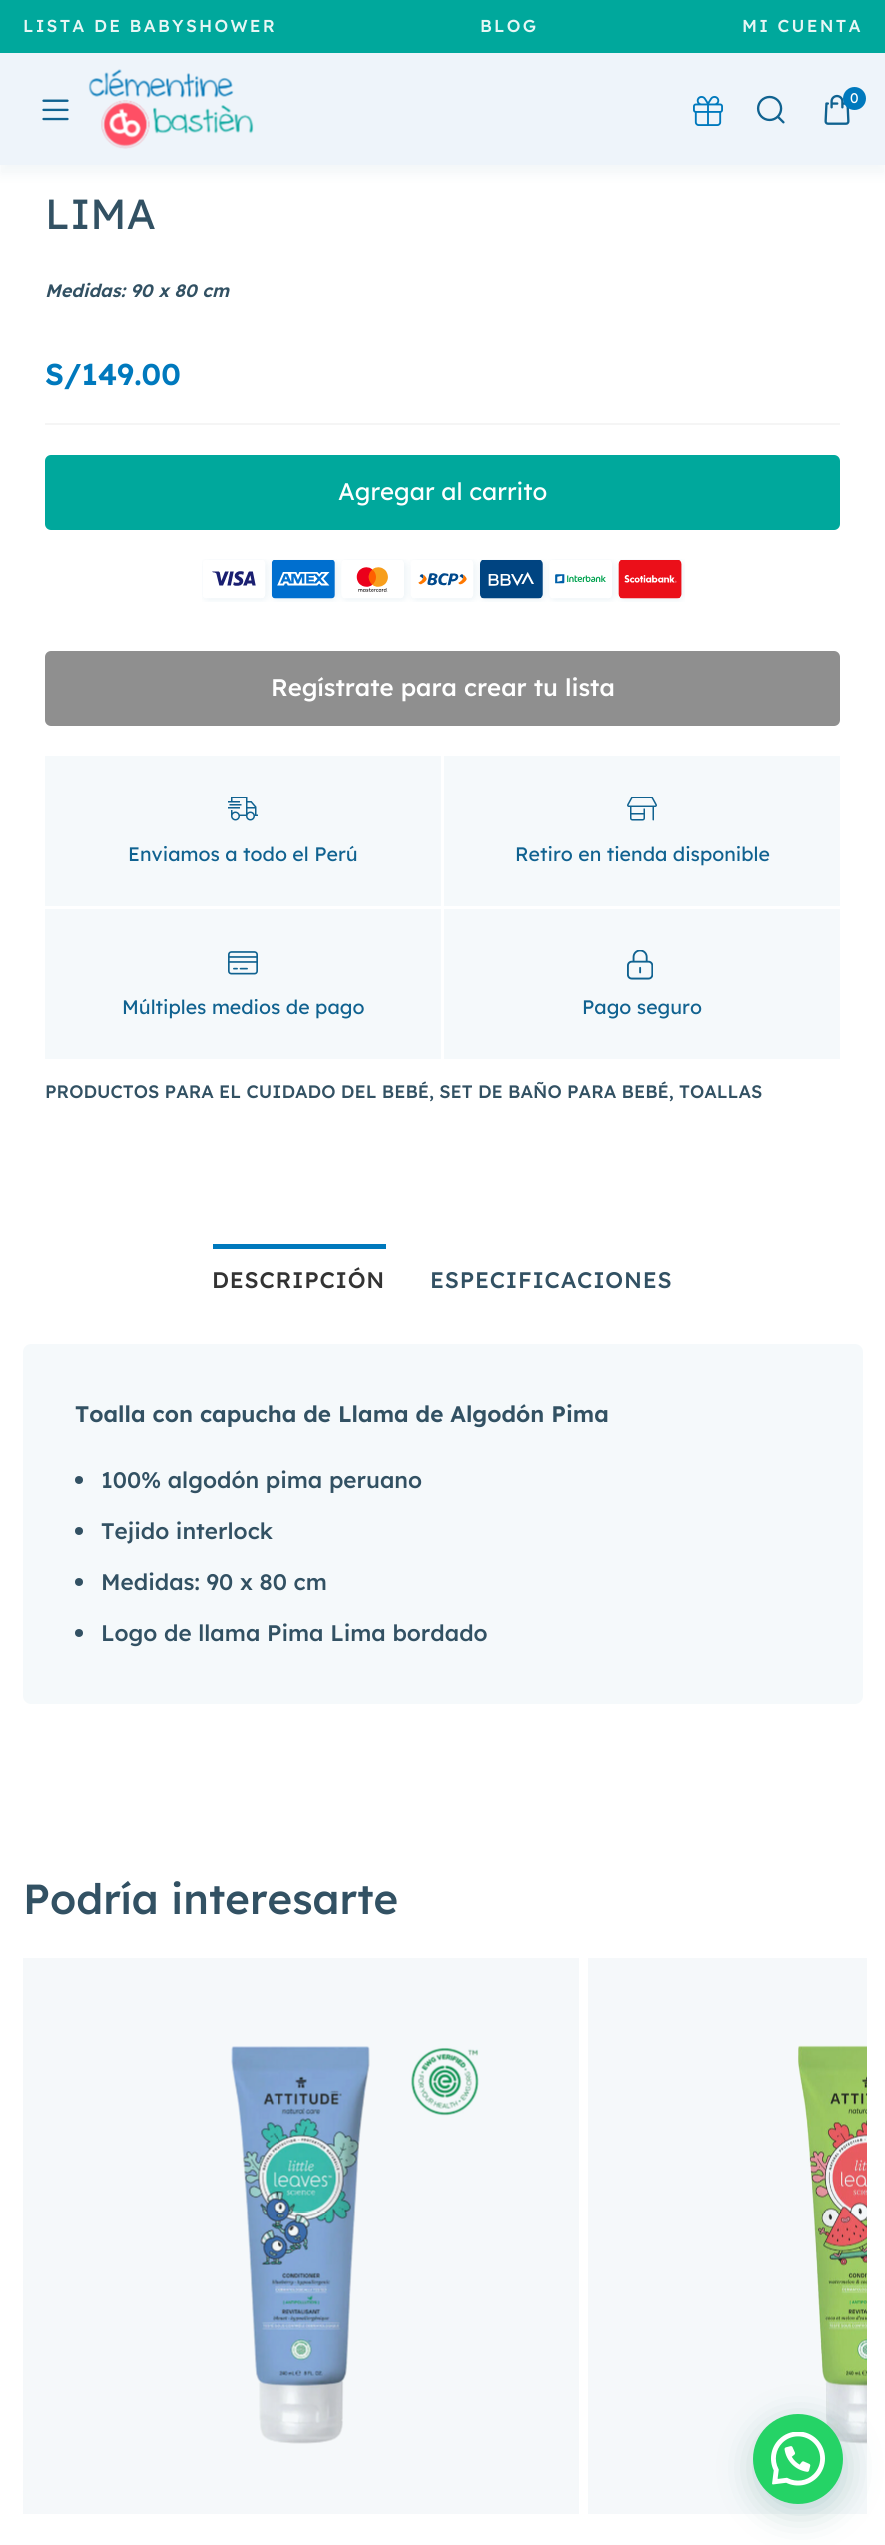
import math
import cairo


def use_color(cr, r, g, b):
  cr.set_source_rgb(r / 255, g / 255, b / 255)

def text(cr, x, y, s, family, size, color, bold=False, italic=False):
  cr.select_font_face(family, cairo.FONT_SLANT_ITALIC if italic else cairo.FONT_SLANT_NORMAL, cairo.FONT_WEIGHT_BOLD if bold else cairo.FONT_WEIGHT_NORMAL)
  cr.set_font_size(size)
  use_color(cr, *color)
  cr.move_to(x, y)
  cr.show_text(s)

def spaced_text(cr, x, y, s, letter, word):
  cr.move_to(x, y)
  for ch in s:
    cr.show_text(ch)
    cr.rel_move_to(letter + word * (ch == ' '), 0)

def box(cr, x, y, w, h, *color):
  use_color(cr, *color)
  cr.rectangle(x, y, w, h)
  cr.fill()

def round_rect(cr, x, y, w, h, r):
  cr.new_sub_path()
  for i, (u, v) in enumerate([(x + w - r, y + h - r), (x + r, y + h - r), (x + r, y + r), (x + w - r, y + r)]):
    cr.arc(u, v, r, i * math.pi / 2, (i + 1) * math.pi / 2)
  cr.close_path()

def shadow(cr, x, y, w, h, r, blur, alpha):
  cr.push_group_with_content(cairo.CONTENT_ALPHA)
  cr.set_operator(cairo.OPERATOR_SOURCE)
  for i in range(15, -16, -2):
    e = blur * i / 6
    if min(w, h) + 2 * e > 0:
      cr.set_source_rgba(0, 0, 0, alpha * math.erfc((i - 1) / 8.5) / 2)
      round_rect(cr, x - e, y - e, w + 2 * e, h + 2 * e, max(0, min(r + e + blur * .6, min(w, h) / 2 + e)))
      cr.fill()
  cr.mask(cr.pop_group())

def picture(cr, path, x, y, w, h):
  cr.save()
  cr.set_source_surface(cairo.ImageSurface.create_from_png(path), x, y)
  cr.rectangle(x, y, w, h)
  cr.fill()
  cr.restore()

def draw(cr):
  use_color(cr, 255, 255, 255)
  cr.paint()
  use_color(cr, 6, 72, 110)
  shadow(cr, 0, 9, 885, 165, 0, 6, 0.05)
  box(cr, 0, 0, 885, 53, 0, 168, 156)
  box(cr, 0, 53, 885, 112, 238, 244, 250)
  picture(cr, "img_01.png", 42, 99, 27, 22)
  picture(cr, "img_02.png", 88, 69, 166, 80)
  picture(cr, "img_03.png", 693, 96, 30, 30)
  picture(cr, "img_04.png", 756, 95, 29, 29)
  picture(cr, "img_05.png", 824, 94, 26, 31)
  use_color(cr, 0, 121, 189)
  cr.arc(854.5, 98.5, 11.5, 0, 2 * math.pi)
  cr.fill()
  box(cr, 45, 423, 795, 2, 245, 245, 245)
  use_color(cr, 0, 168, 156)
  round_rect(cr, 45, 455, 795, 75, 6)
  cr.fill()
  picture(cr, "img_06.png", 202, 559, 483, 43)
  use_color(cr, 143, 143, 143)
  round_rect(cr, 45, 651, 795, 75, 6)
  cr.fill()
  box(cr, 45, 756, 396, 150, 245, 249, 251)
  picture(cr, "img_07.png", 228, 797, 30, 24)
  box(cr, 444, 756, 396, 150, 245, 249, 251)
  picture(cr, "img_08.png", 627, 797, 30, 24)
  box(cr, 45, 909, 396, 150, 245, 249, 251)
  picture(cr, "img_09.png", 228, 951, 30, 24)
  box(cr, 444, 909, 396, 150, 245, 249, 251)
  picture(cr, "img_10.png", 627, 950, 26, 30)
  box(cr, 213, 1244, 173, 5, 0, 121, 189)
  use_color(cr, 245, 249, 251)
  round_rect(cr, 23, 1344, 840, 360, 8)
  cr.fill()
  use_color(cr, 50, 81, 99)
  cr.arc(79, 1480, 4, 0, 2 * math.pi)
  cr.fill()
  cr.arc(79, 1531, 4, 0, 2 * math.pi)
  cr.fill()
  cr.arc(79, 1582, 4, 0, 2 * math.pi)
  cr.fill()
  cr.arc(79, 1633, 4, 0, 2 * math.pi)
  cr.fill()
  picture(cr, "img_11.png", 231, 2046, 248, 398)
  cr.set_source_rgba(0.004, 0.357, 0.565, 0.04)
  cr.rectangle(23, 1958, 556, 556)
  cr.fill()
  picture(cr, "img_12.png", 798, 2045, 69, 399)
  cr.rectangle(588, 1958, 279, 556)
  cr.fill()
  use_color(cr, 7, 94, 84)
  shadow(cr, 755, 2423, 90, 90, 45, 18, 0.24)
  use_color(cr, 37, 211, 102)
  cr.arc(798, 2459, 45, 0, 2 * math.pi)
  cr.fill()
  picture(cr, "img_13.png", 771, 2432, 54, 54)
  cr.select_font_face("Lexend Medium")
  cr.set_font_size(17.25)
  use_color(cr, 230, 246, 245)
  spaced_text(cr, 23, 32, "LISTA DE BABYSHOWER", 2.25, 0)
  spaced_text(cr, 480, 32, "BLOG", 2.25, 0)
  spaced_text(cr, 742, 32, "MI CUENTA", 2.25, 0)
  text(cr, 850, 103, "0", "Lexend", 14, (255, 255, 255))
  text(cr, 45, 229, "LIMA", "Lexend", 42, (50, 81, 99))
  text(cr, 45, 297, "Medidas: 90 x 80 cm", "Lexend SemiBold", 18, (50, 81, 99), italic=True)
  text(cr, 45, 385, "S/149.00", "Lexend SemiBold", 30, (0, 121, 189))
  text(cr, 338, 500, "Agregar al carrito", "Lexend", 24, (255, 255, 255))
  text(cr, 271, 696, "Regístrate para crear tu lista", "Lexend Medium", 24, (255, 255, 255))
  text(cr, 128, 861, "Enviamos a todo el Perú", "Lexend", 19.5, (16, 98, 144))
  text(cr, 515, 861, "Retiro en tienda disponible", "Lexend", 19.5, (16, 98, 144))
  text(cr, 122, 1014, "Múltiples medios de pago", "Lexend", 19.5, (16, 98, 144))
  text(cr, 582, 1014, "Pago seguro", "Lexend", 19.5, (16, 98, 144))
  text(cr, 45, 1098, "PRODUCTOS PARA EL CUIDADO DEL BEBÉ, SET DE BAÑO PARA BEBÉ, TOALLAS", "Lexend Medium", 18, (50, 81, 99))
  cr.set_font_size(22.5)
  use_color(cr, 51, 51, 51)
  spaced_text(cr, 212, 1288, "DESCRIPCIÓN", 0.75, 0)
  use_color(cr, 50, 81, 99)
  spaced_text(cr, 430, 1288, "ESPECIFICACIONES", 0.75, 0)
  text(cr, 75, 1422, "Toalla con capucha de Llama de Algodón Pima", "Lexend SemiBold", 22.5, (50, 81, 99))
  text(cr, 101, 1488, "100% algodón pima peruano", "Lexend Medium", 22.5, (50, 81, 99))
  text(cr, 101, 1539, "Tejido interlock", "Lexend Medium", 22.5, (50, 81, 99))
  text(cr, 101, 1590, "Medidas: 90 x 80 cm", "Lexend Medium", 22.5, (50, 81, 99))
  text(cr, 101, 1641, "Logo de llama Pima Lima bordado", "Lexend Medium", 22.5, (50, 81, 99))
  text(cr, 23, 1914, "Podría interesarte", "Lexend Medium", 42, (50, 81, 99))


surface = cairo.ImageSurface(cairo.FORMAT_RGB24, 885, 2545)
cr = cairo.Context(surface)
options = cairo.FontOptions()
options.set_hint_metrics(cairo.HINT_METRICS_OFF)
options.set_hint_style(cairo.HINT_STYLE_NONE)
cr.set_font_options(options)
cr.set_miter_limit(4)
draw(cr)
surface.write_to_png("out.png")
